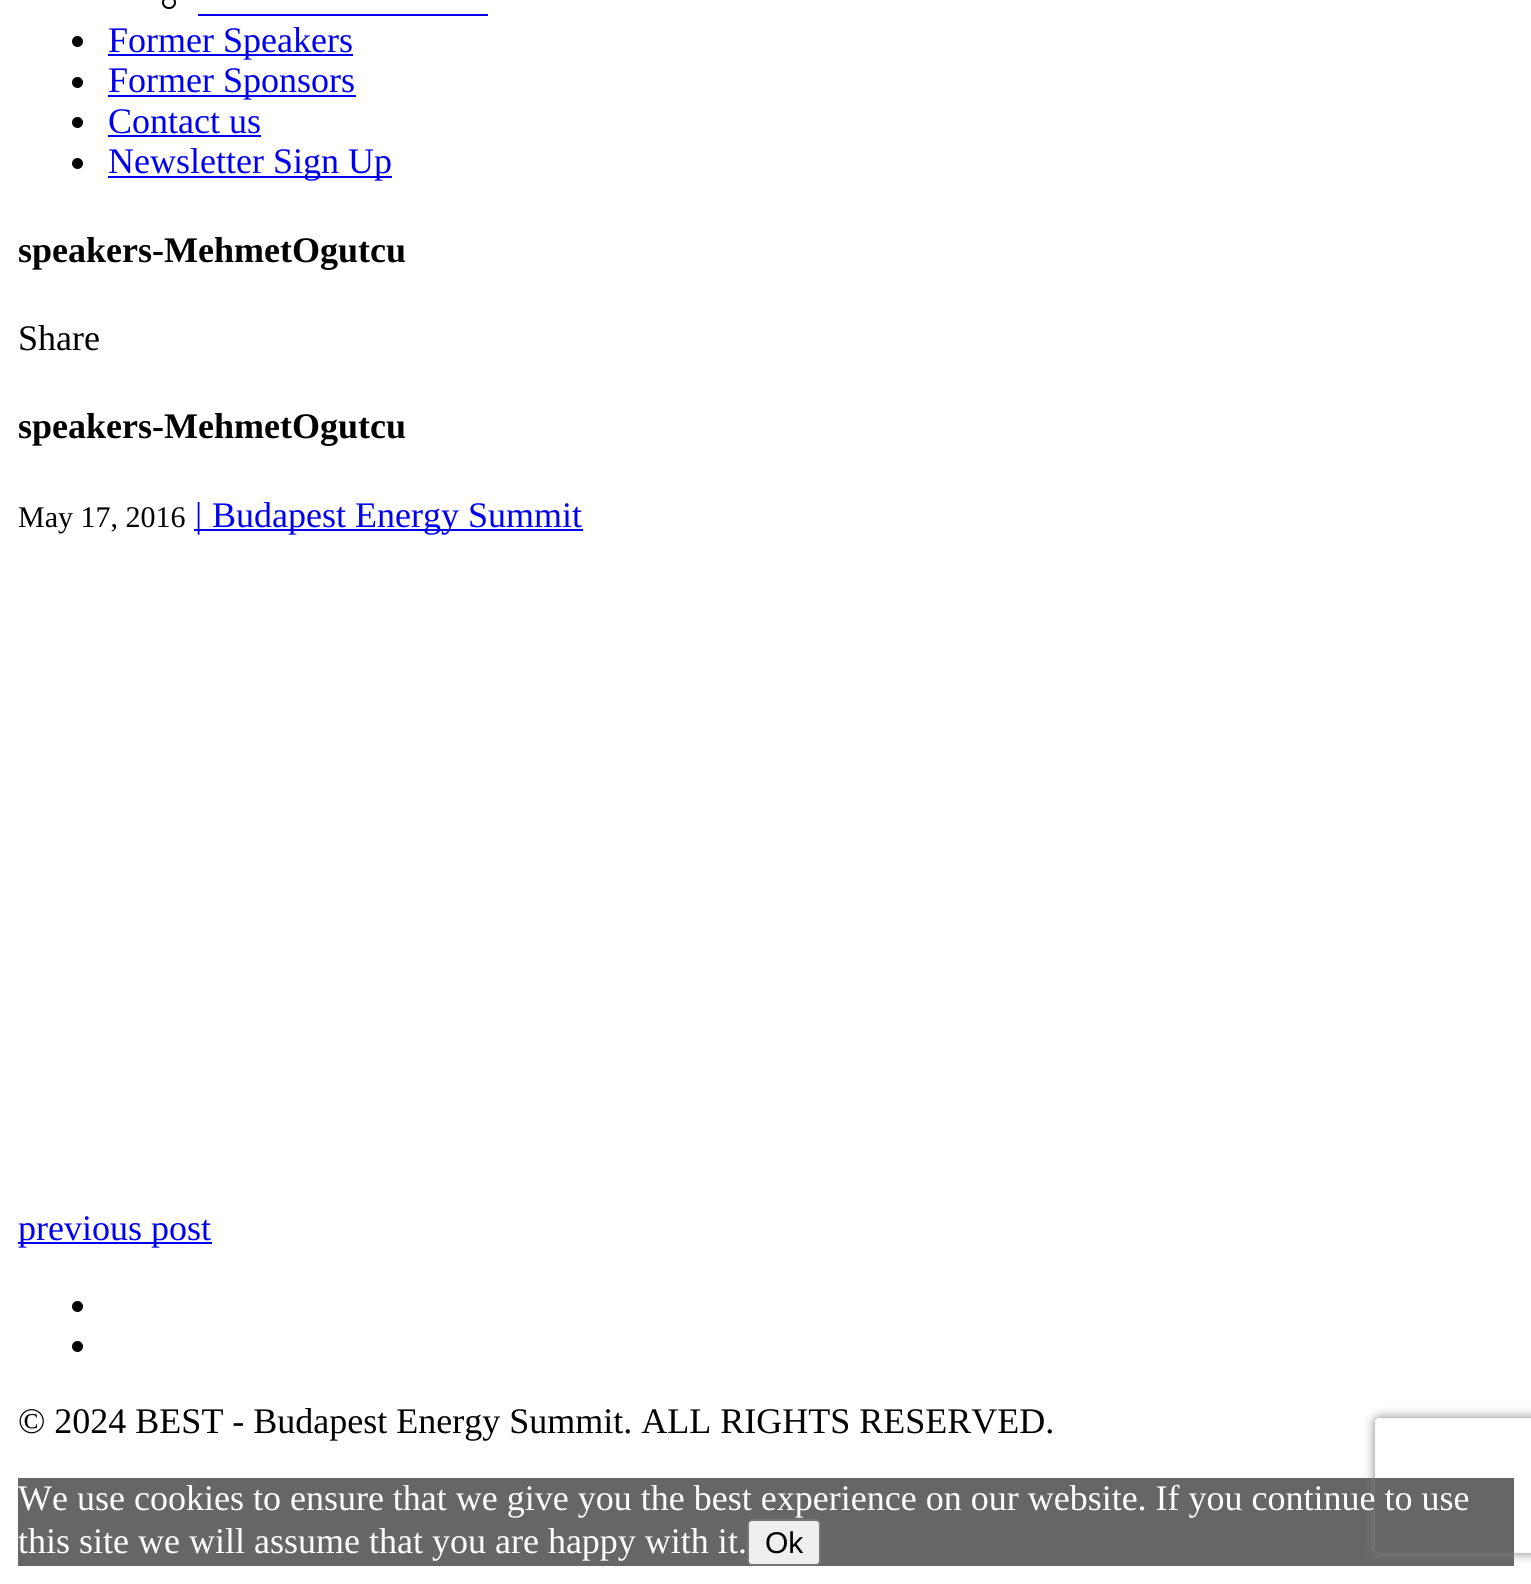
import math
import cairo


def use_color(cr, r, g, b):
  cr.set_source_rgb(r / 255, g / 255, b / 255)

def text(cr, x, y, s, family, size, color, bold=False, italic=False):
  cr.select_font_face(family, cairo.FONT_SLANT_ITALIC if italic else cairo.FONT_SLANT_NORMAL, cairo.FONT_WEIGHT_BOLD if bold else cairo.FONT_WEIGHT_NORMAL)
  cr.set_font_size(size)
  use_color(cr, *color)
  cr.move_to(x, y)
  cr.show_text(s)

def box(cr, x, y, w, h, *color):
  use_color(cr, *color)
  cr.rectangle(x, y, w, h)
  cr.fill()

def round_rect(cr, x, y, w, h, r):
  cr.new_sub_path()
  for i, (u, v) in enumerate([(x + w - r, y + h - r), (x + r, y + h - r), (x + r, y + r), (x + w - r, y + r)]):
    cr.arc(u, v, r, i * math.pi / 2, (i + 1) * math.pi / 2)
  cr.close_path()

def shadow(cr, x, y, w, h, r, blur, alpha):
  cr.push_group_with_content(cairo.CONTENT_ALPHA)
  cr.set_operator(cairo.OPERATOR_SOURCE)
  for i in range(15, -16, -2):
    e = blur * i / 6
    if min(w, h) + 2 * e > 0:
      cr.set_source_rgba(0, 0, 0, alpha * math.erfc((i - 1) / 8.5) / 2)
      round_rect(cr, x - e, y - e, w + 2 * e, h + 2 * e, max(0, min(r + e + blur * .6, min(w, h) / 2 + e)))
      cr.fill()
  cr.mask(cr.pop_group())

def draw(cr):
  use_color(cr, 255, 255, 255)
  cr.paint()
  round_rect(cr, 163, -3, 12, 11, 5.5)
  use_color(cr, 0, 0, 0)
  cr.stroke()
  box(cr, 198, 14, 290, 2, 0, 0, 238)
  use_color(cr, 0, 0, 0)
  cr.arc(77.5, 41.5, 5.5, 0, 2 * math.pi)
  cr.fill()
  box(cr, 108, 54, 245, 2, 0, 0, 238)
  use_color(cr, 0, 0, 0)
  cr.arc(77.5, 82.5, 5.5, 0, 2 * math.pi)
  cr.fill()
  box(cr, 108, 95, 248, 2, 0, 0, 238)
  use_color(cr, 0, 0, 0)
  cr.arc(77.5, 122.5, 5.5, 0, 2 * math.pi)
  cr.fill()
  box(cr, 108, 135, 153, 2, 0, 0, 238)
  use_color(cr, 0, 0, 0)
  cr.arc(77.5, 163.5, 5.5, 0, 2 * math.pi)
  cr.fill()
  box(cr, 108, 176, 284, 2, 0, 0, 238)
  box(cr, 194, 529, 389, 2, 0, 0, 238)
  box(cr, 18, 1242, 194, 2, 0, 0, 238)
  use_color(cr, 0, 0, 0)
  cr.arc(77.5, 1306.5, 5.5, 0, 2 * math.pi)
  cr.fill()
  cr.arc(77.5, 1346.5, 5.5, 0, 2 * math.pi)
  cr.fill()
  box(cr, 18, 1478, 1496, 88, 102, 102, 102)
  cr.save()
  cr.set_fill_rule(cairo.FILL_RULE_EVEN_ODD)
  cr.new_path()
  cr.move_to(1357, 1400)
  cr.line_to(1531, 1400)
  cr.line_to(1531, 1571)
  cr.line_to(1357, 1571)
  cr.close_path()
  cr.move_to(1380, 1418)
  cr.line_to(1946, 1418)
  cr.curve_to(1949, 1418, 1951, 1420, 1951, 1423)
  cr.line_to(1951, 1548)
  cr.curve_to(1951, 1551, 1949, 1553, 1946, 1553)
  cr.line_to(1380, 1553)
  cr.curve_to(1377, 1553, 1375, 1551, 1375, 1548)
  cr.line_to(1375, 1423)
  cr.curve_to(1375, 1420, 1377, 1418, 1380, 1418)
  cr.close_path()
  cr.clip()
  use_color(cr, 128, 128, 128)
  shadow(cr, 1375, 1418, 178, 135, 5, 5.5, 1)
  cr.restore()
  use_color(cr, 239, 239, 239)
  round_rect(cr, 748, 1520, 72, 45, 4)
  cr.fill_preserve()
  use_color(cr, 118, 118, 118)
  cr.stroke()
  text(cr, 108, 52, "Former Speakers", "Liberation Serif", 36, (0, 0, 238))
  text(cr, 108, 92, "Former Sponsors", "Liberation Serif", 36, (0, 0, 238))
  text(cr, 108, 133, "Contact us", "Liberation Serif", 36, (0, 0, 238))
  text(cr, 108, 173, "Newsletter Sign Up", "Liberation Serif", 36, (0, 0, 238))
  text(cr, 18, 262, "speakers-MehmetOgutcu", "Liberation Serif", 36, (0, 0, 0), bold=True)
  text(cr, 18, 350, "Share", "Liberation Serif", 36, (0, 0, 0))
  text(cr, 18, 438, "speakers-MehmetOgutcu", "Liberation Serif", 36, (0, 0, 0), bold=True)
  text(cr, 18, 527, "May 17, 2016", "Liberation Serif", 30, (0, 0, 0))
  text(cr, 193, 527, "|", "Liberation Serif", 36, (0, 0, 238), italic=True)
  text(cr, 212, 527, "Budapest Energy Summit", "Liberation Serif", 36, (0, 0, 238))
  text(cr, 18, 1240, "previous post", "Liberation Serif", 36, (0, 0, 238))
  text(cr, 18, 1433, "© 2024 BEST - Budapest Energy Summit. ALL RIGHTS RESERVED.", "Liberation Serif", 36, (0, 0, 0))
  text(cr, 18, 1510, "We use cookies to ensure that we give you the best experience on our website. If you continue to use", "Liberation Serif", 36, (255, 255, 255))
  text(cr, 18, 1553, "this site we will assume that you are happy with it.", "Liberation Serif", 36, (255, 255, 255))
  text(cr, 765, 1553, "Ok", "Liberation Sans", 30, (0, 0, 0))


surface = cairo.ImageSurface(cairo.FORMAT_RGB24, 1531, 1584)
cr = cairo.Context(surface)
options = cairo.FontOptions()
options.set_hint_metrics(cairo.HINT_METRICS_OFF)
options.set_hint_style(cairo.HINT_STYLE_NONE)
cr.set_font_options(options)
cr.set_miter_limit(4)
draw(cr)
surface.write_to_png("out.png")
